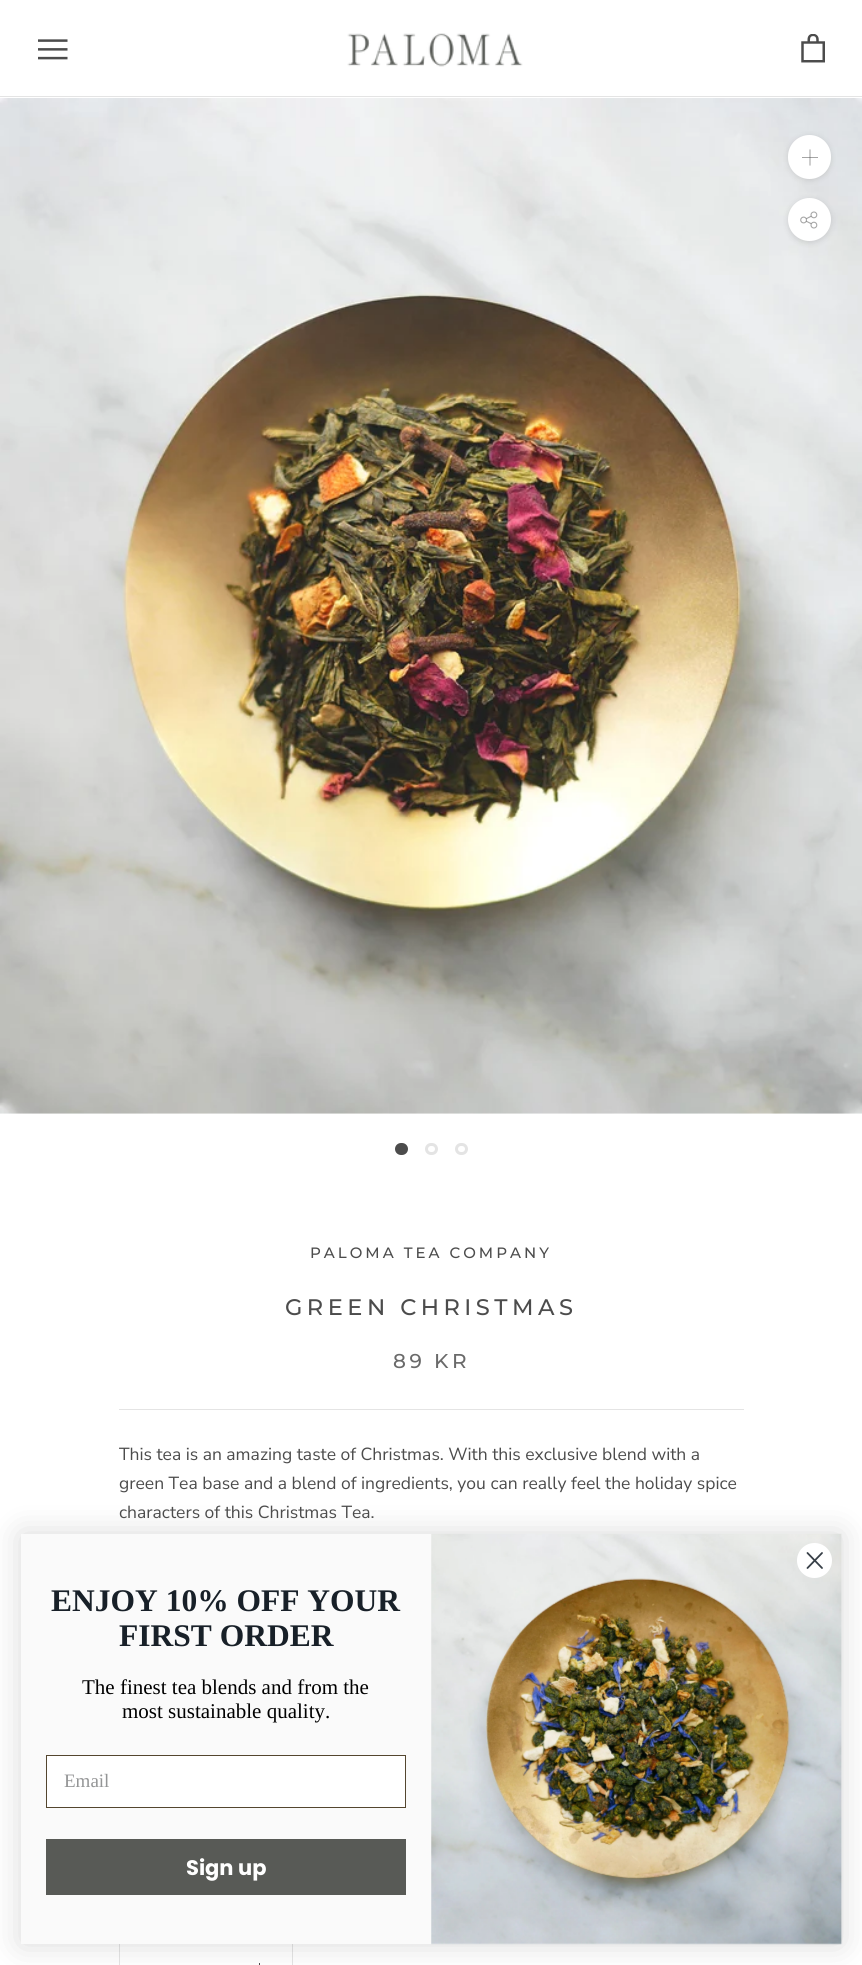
import math
import cairo


def use_color(cr, r, g, b):
  cr.set_source_rgb(r / 255, g / 255, b / 255)

def text(cr, x, y, s, family, size, color, bold=False, italic=False):
  cr.select_font_face(family, cairo.FONT_SLANT_ITALIC if italic else cairo.FONT_SLANT_NORMAL, cairo.FONT_WEIGHT_BOLD if bold else cairo.FONT_WEIGHT_NORMAL)
  cr.set_font_size(size)
  use_color(cr, *color)
  cr.move_to(x, y)
  cr.show_text(s)

def spaced_text(cr, x, y, s, letter, word):
  cr.move_to(x, y)
  for ch in s:
    cr.show_text(ch)
    cr.rel_move_to(letter + word * (ch == ' '), 0)

def box(cr, x, y, w, h, *color):
  use_color(cr, *color)
  cr.rectangle(x, y, w, h)
  cr.fill()

def round_rect(cr, x, y, w, h, r):
  cr.new_sub_path()
  for i, (u, v) in enumerate([(x + w - r, y + h - r), (x + r, y + h - r), (x + r, y + r), (x + w - r, y + r)]):
    cr.arc(u, v, r, i * math.pi / 2, (i + 1) * math.pi / 2)
  cr.close_path()

def shadow(cr, x, y, w, h, r, blur, alpha):
  cr.push_group_with_content(cairo.CONTENT_ALPHA)
  cr.set_operator(cairo.OPERATOR_SOURCE)
  for i in range(15, -16, -2):
    e = blur * i / 6
    if min(w, h) + 2 * e > 0:
      cr.set_source_rgba(0, 0, 0, alpha * math.erfc((i - 1) / 8.5) / 2)
      round_rect(cr, x - e, y - e, w + 2 * e, h + 2 * e, max(0, min(r + e + blur * .6, min(w, h) / 2 + e)))
      cr.fill()
  cr.mask(cr.pop_group())

def picture(cr, path, x, y, w, h):
  cr.save()
  cr.set_source_surface(cairo.ImageSurface.create_from_png(path), x, y)
  cr.rectangle(x, y, w, h)
  cr.fill()
  cr.restore()

def draw(cr):
  use_color(cr, 255, 255, 255)
  cr.paint()
  box(cr, 0, 96, 862, 1, 228, 228, 228)
  picture(cr, "img_01.png", 38, 39, 30, 21)
  picture(cr, "img_02.png", 347, 33, 176, 34)
  picture(cr, "img_03.png", 801, 34, 24, 29)
  picture(cr, "img_04.png", 0, 98, 862, 1016)
  use_color(cr, 76, 76, 76)
  round_rect(cr, 396.5, 1144.5, 10, 9, 4.5)
  cr.fill_preserve()
  cr.set_line_width(3)
  cr.stroke()
  round_rect(cr, 426.5, 1144.5, 10, 9, 4.5)
  use_color(cr, 228, 228, 228)
  cr.stroke()
  round_rect(cr, 456.5, 1144.5, 10, 9, 4.5)
  cr.stroke()
  use_color(cr, 54, 54, 54)
  shadow(cr, 788, 136, 43, 44, 21.5, 3, 0.15)
  use_color(cr, 255, 255, 255)
  round_rect(cr, 788, 135, 43, 44, 21.5)
  cr.fill()
  cr.new_path()
  cr.move_to(810, 150)
  cr.line_to(810, 165)
  use_color(cr, 166, 166, 166)
  cr.set_line_width(1.1)
  cr.set_line_cap(cairo.LINE_CAP_SQUARE)
  cr.stroke()
  cr.set_source_rgba(0.298, 0.298, 0.298, 0.5)
  cr.rectangle(802, 157, 16, 1)
  cr.fill()
  use_color(cr, 54, 54, 54)
  shadow(cr, 788, 199, 43, 44, 21.5, 3, 0.15)
  use_color(cr, 255, 255, 255)
  cr.arc(809.5, 219.5, 21.5, 0, 2 * math.pi)
  cr.fill()
  picture(cr, "img_05.png", 800, 211, 18, 18)
  box(cr, 119, 1409, 625, 1, 228, 228, 228)
  cr.rectangle(119.5, 1941.5, 173, 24)
  cr.set_line_width(1)
  cr.set_line_cap(cairo.LINE_CAP_BUTT)
  cr.stroke()
  box(cr, 259, 1963, 1, 2, 76, 76, 76)
  use_color(cr, 0, 0, 0)
  shadow(cr, 21, 1534, 820, 410, 0, 16, 0.15)
  box(cr, 21, 1534, 820, 410, 250, 250, 250)
  picture(cr, "img_06.png", 431, 1533, 412, 412)
  use_color(cr, 255, 255, 255)
  cr.arc(814.5, 1560.5, 17.5, 0, 2 * math.pi)
  cr.fill()
  cr.new_path()
  cr.move_to(807.5, 1553)
  cr.line_to(822, 1568)
  cr.move_to(807.5, 1568)
  cr.line_to(822, 1553)
  cr.close_path()
  use_color(cr, 55, 63, 71)
  cr.set_line_width(1.8)
  cr.set_line_cap(cairo.LINE_CAP_ROUND)
  cr.set_line_join(cairo.LINE_JOIN_ROUND)
  cr.stroke()
  use_color(cr, 255, 255, 255)
  cr.rectangle(46.5, 1755.5, 359, 52)
  cr.fill_preserve()
  use_color(cr, 84, 70, 47)
  cr.set_line_width(1)
  cr.set_line_cap(cairo.LINE_CAP_BUTT)
  cr.set_line_join(cairo.LINE_JOIN_MITER)
  cr.stroke()
  box(cr, 46, 1839, 360, 56, 88, 90, 86)
  cr.select_font_face("Montserrat Medium")
  cr.set_font_size(15)
  use_color(cr, 76, 76, 76)
  spaced_text(cr, 310, 1258, "PALOMA TEA COMPANY", 3, 0)
  cr.set_font_size(22.5)
  spaced_text(cr, 285, 1315, "GREEN CHRISTMAS", 4.5, 0)
  cr.set_font_size(20)
  use_color(cr, 106, 106, 106)
  spaced_text(cr, 393, 1368, "89 KR", 3.5, 0)
  text(cr, 119, 1460, "This tea is an amazing taste of Christmas. With this exclusive blend with a", "Nunito Sans", 17.5, (76, 76, 76))
  text(cr, 119, 1489, "green Tea base and a blend of ingredients, you can really feel the holiday spice", "Nunito Sans", 17.5, (76, 76, 76))
  text(cr, 119, 1518, "characters of this Christmas Tea.", "Nunito Sans", 17.5, (76, 76, 76))
  text(cr, 51, 1611, "ENJOY 10% OFF YOUR", "Liberation Serif", 31.5, (24, 32, 40), bold=True)
  text(cr, 119, 1646, "FIRST ORDER", "Liberation Serif", 31.5, (24, 32, 40), bold=True)
  text(cr, 82, 1694, "The finest tea blends and from the", "Liberation Serif", 21, (0, 0, 0))
  text(cr, 122, 1718, "most sustainable quality.", "Liberation Serif", 21, (0, 0, 0))
  text(cr, 64, 1787, "Email", "Liberation Serif", 19, (148, 149, 150))
  text(cr, 186, 1875, "Sign up", "Poppins", 21, (255, 255, 255), bold=True)


surface = cairo.ImageSurface(cairo.FORMAT_RGB24, 862, 1965)
cr = cairo.Context(surface)
options = cairo.FontOptions()
options.set_hint_metrics(cairo.HINT_METRICS_OFF)
options.set_hint_style(cairo.HINT_STYLE_NONE)
cr.set_font_options(options)
cr.set_miter_limit(4)
draw(cr)
surface.write_to_png("out.png")
